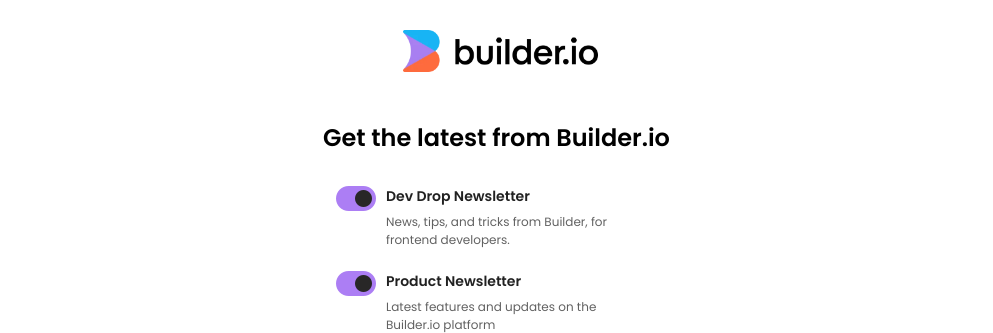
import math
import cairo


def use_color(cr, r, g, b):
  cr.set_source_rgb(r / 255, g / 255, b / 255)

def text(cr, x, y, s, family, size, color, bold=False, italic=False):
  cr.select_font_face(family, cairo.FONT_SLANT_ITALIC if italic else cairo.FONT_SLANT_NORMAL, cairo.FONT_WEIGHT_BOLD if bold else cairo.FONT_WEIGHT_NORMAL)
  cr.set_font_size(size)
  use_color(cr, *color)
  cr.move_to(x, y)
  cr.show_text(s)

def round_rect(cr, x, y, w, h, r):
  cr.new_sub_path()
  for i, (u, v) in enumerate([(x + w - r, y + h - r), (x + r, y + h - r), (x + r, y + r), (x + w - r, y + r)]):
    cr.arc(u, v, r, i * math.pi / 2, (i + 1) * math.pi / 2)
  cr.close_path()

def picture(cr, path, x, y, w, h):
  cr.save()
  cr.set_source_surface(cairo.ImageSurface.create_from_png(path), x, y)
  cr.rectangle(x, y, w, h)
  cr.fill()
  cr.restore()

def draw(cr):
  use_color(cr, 255, 255, 255)
  cr.paint()
  picture(cr, "img_01.png", 403, 30, 195, 42)
  use_color(cr, 172, 126, 244)
  round_rect(cr, 336, 186, 40, 25, 12.5)
  cr.fill()
  use_color(cr, 40, 39, 39)
  cr.arc(363.5, 198.5, 8.5, 0, 2 * math.pi)
  cr.fill()
  use_color(cr, 172, 126, 244)
  round_rect(cr, 336, 271, 40, 25, 12.5)
  cr.fill()
  use_color(cr, 40, 39, 39)
  cr.arc(363.5, 283.5, 8.5, 0, 2 * math.pi)
  cr.fill()
  text(cr, 323, 146, "Get the latest from Builder.io", "Poppins SemiBold", 24, (0, 0, 0))
  text(cr, 386, 201, "Dev Drop Newsletter", "Poppins SemiBold", 14, (33, 33, 33))
  text(cr, 386, 226, "News, tips, and tricks from Builder, for", "Poppins", 12, (97, 97, 97))
  text(cr, 386, 244, "frontend developers.", "Poppins", 12, (97, 97, 97))
  text(cr, 386, 286, "Product Newsletter", "Poppins SemiBold", 14, (33, 33, 33))
  text(cr, 386, 311, "Latest features and updates on the", "Poppins", 12, (97, 97, 97))
  text(cr, 386, 329, "Builder.io platform", "Poppins", 12, (97, 97, 97))


surface = cairo.ImageSurface(cairo.FORMAT_RGB24, 993, 333)
cr = cairo.Context(surface)
options = cairo.FontOptions()
options.set_hint_metrics(cairo.HINT_METRICS_OFF)
options.set_hint_style(cairo.HINT_STYLE_NONE)
cr.set_font_options(options)
cr.set_miter_limit(4)
draw(cr)
surface.write_to_png("out.png")
